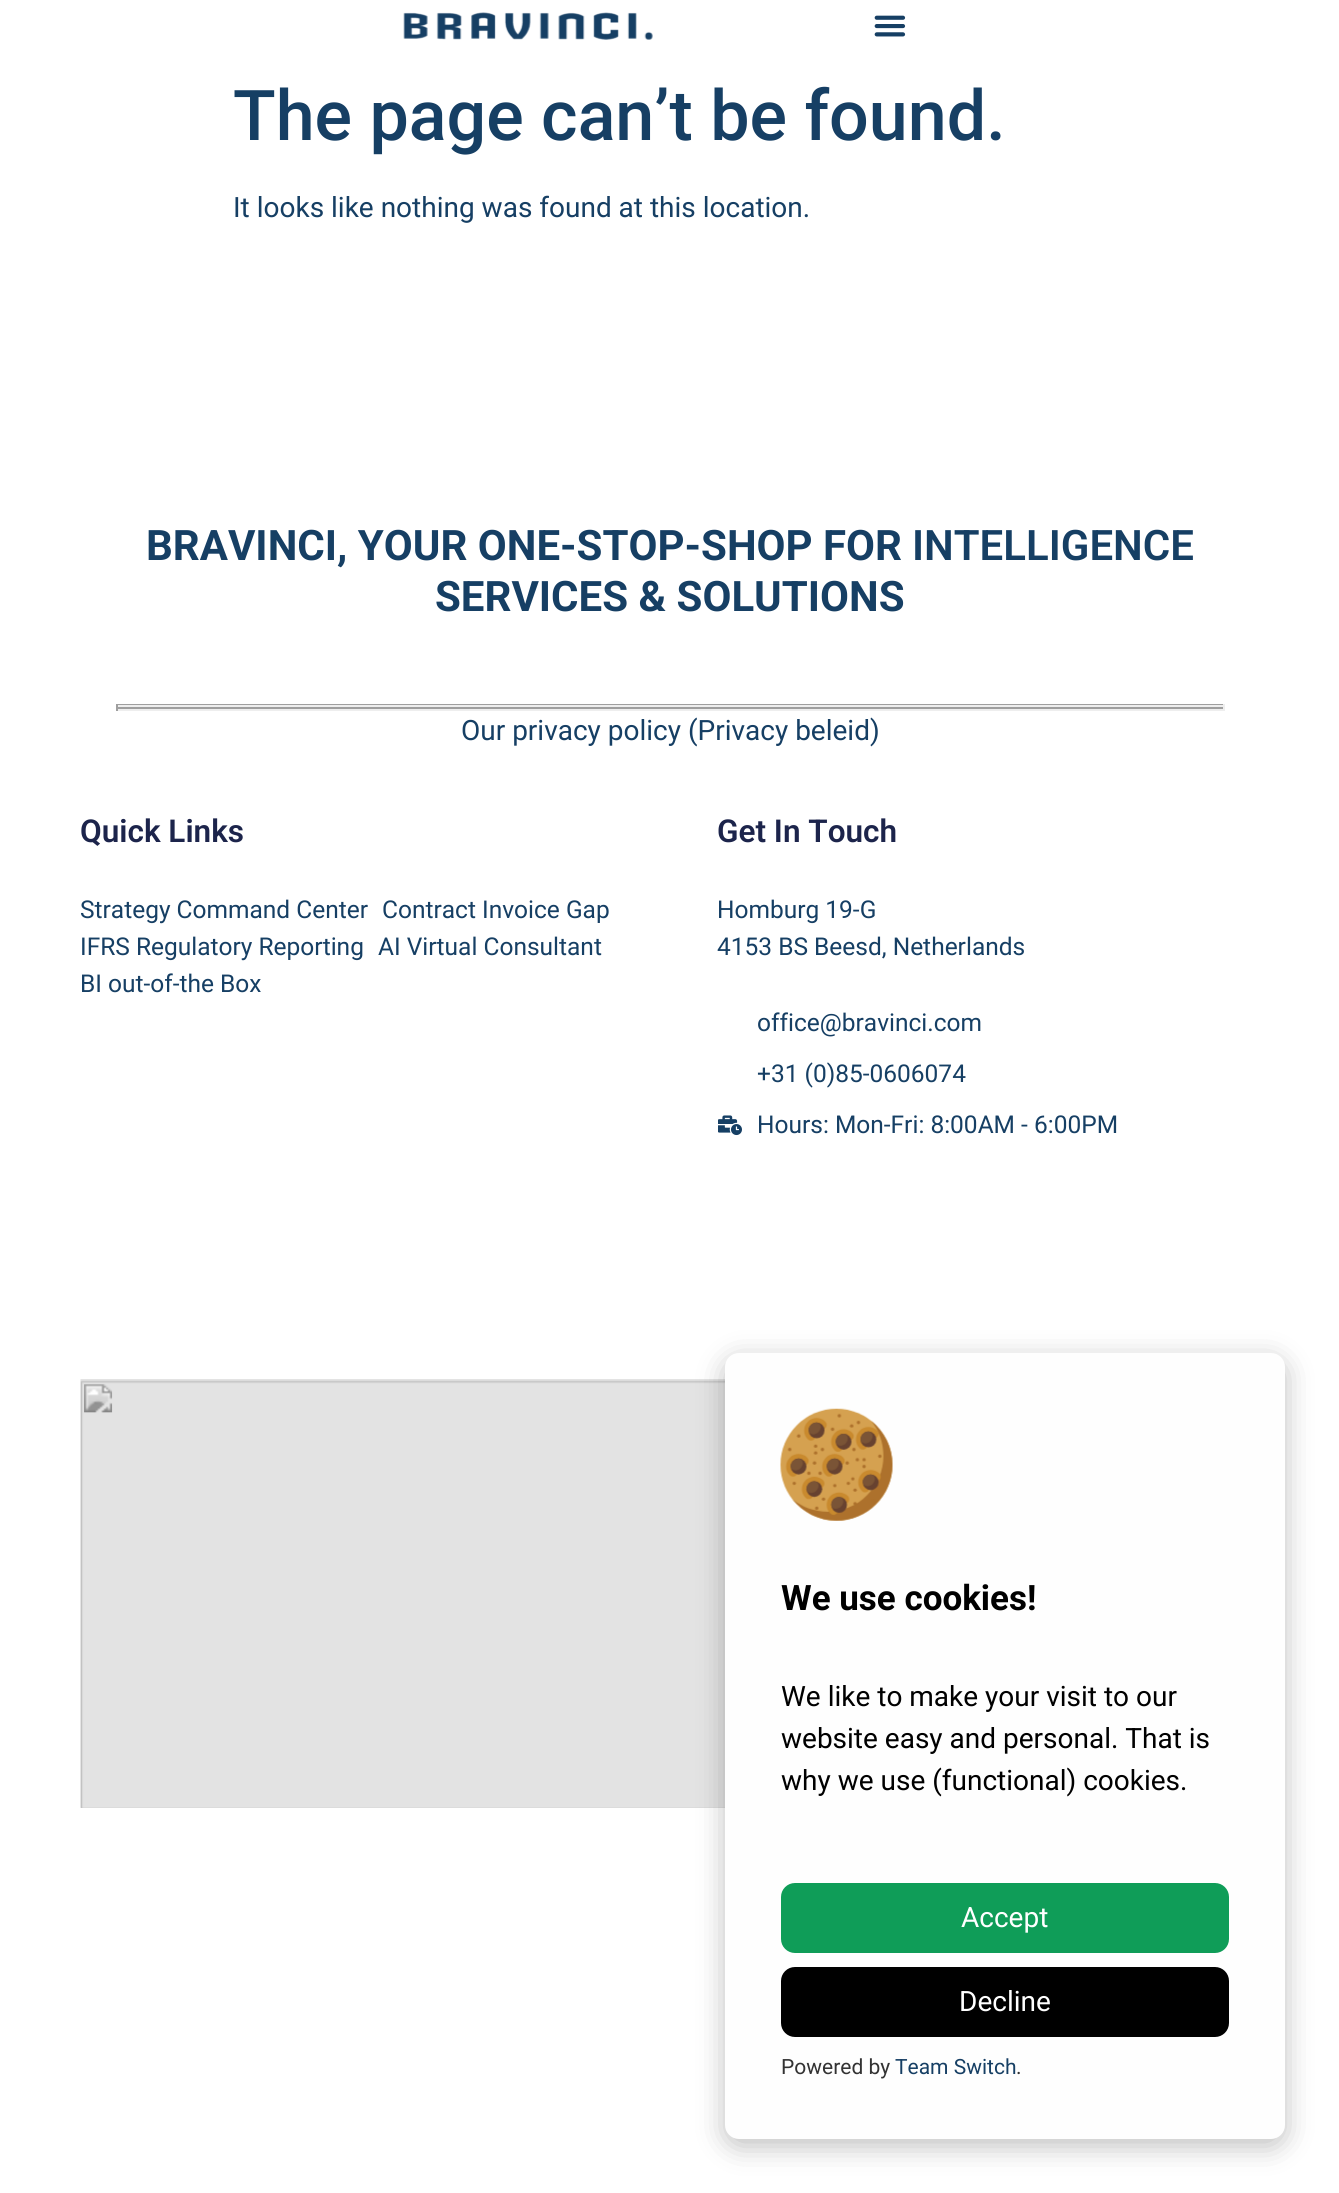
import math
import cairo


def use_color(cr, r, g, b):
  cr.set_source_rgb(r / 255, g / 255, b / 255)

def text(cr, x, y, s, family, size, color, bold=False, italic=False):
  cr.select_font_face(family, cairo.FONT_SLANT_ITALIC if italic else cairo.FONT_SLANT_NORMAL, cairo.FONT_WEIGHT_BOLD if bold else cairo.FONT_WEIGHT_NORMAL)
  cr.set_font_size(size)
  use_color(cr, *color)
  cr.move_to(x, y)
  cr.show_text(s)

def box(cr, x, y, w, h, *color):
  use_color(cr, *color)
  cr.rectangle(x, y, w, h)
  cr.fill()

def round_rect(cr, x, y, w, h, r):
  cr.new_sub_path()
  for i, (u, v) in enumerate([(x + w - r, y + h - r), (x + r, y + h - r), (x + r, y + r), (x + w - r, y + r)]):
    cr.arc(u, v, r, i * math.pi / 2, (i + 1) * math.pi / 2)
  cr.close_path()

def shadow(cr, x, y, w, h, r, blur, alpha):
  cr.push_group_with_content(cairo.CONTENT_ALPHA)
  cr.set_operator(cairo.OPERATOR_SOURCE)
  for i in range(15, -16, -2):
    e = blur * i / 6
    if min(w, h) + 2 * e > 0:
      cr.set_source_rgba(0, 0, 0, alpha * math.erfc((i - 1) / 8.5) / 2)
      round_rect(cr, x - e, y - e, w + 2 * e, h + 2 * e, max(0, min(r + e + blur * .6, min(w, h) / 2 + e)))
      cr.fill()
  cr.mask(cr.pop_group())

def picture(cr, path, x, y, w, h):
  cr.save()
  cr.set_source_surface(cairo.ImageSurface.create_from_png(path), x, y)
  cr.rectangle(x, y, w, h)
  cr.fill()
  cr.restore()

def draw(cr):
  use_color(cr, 255, 255, 255)
  cr.paint()
  picture(cr, "img_01.png", 403, 12, 250, 28)
  picture(cr, "img_02.png", 874, 15, 32, 22)
  box(cr, 116, 704, 1109, 1, 159, 159, 159)
  box(cr, 1223, 704, 2, 4, 238, 238, 238)
  box(cr, 116, 705, 1109, 2, 238, 238, 238)
  box(cr, 116, 704, 2, 4, 159, 159, 159)
  box(cr, 116, 707, 1109, 2, 159, 159, 159)
  box(cr, 1223, 707, 2, 4, 238, 238, 238)
  box(cr, 116, 709, 1109, 2, 238, 238, 238)
  box(cr, 116, 707, 2, 4, 159, 159, 159)
  picture(cr, "img_03.png", 718, 1115, 24, 21)
  picture(cr, "img_04.png", 80, 1379, 645, 429)
  use_color(cr, 48, 48, 48)
  shadow(cr, 725, 1360, 560, 786, 14, 14, 0.31)
  use_color(cr, 254, 254, 254)
  round_rect(cr, 725, 1353, 560, 786, 14)
  cr.fill()
  picture(cr, "img_05.png", 780, 1408, 113, 113)
  use_color(cr, 15, 157, 88)
  round_rect(cr, 781, 1883, 448, 70, 14)
  cr.fill()
  use_color(cr, 0, 0, 0)
  round_rect(cr, 781, 1967, 448, 70, 14)
  cr.fill()
  text(cr, 233, 140, "The page can’t be found.", "Roboto Medium", 70, (22, 63, 100))
  text(cr, 233, 217, "It looks like nothing was found at this location.", "Roboto", 28, (22, 63, 100))
  text(cr, 146, 560, "BRAVINCI, YOUR ONE-STOP-SHOP FOR", "Roboto", 42, (22, 63, 100), bold=True)
  text(cr, 912, 560, "INTELLIGENCE", "Roboto SemiBold", 42, (22, 63, 100))
  text(cr, 435, 611, "SERVICES & SOLUTIONS", "Roboto", 42, (22, 63, 100), bold=True)
  text(cr, 461, 740, "Our privacy policy (Privacy beleid)", "Roboto", 28, (22, 63, 100))
  text(cr, 80, 842, "Quick Links", "Roboto SemiBold", 31.5, (28, 36, 75))
  text(cr, 80, 918, "Strategy Command Center", "Roboto", 24.5, (22, 63, 100))
  text(cr, 382, 918, "Contract Invoice Gap", "Roboto", 24.5, (22, 63, 100))
  text(cr, 80, 955, "IFRS Regulatory Reporting", "Roboto", 24.5, (22, 63, 100))
  text(cr, 378, 955, "AI Virtual Consultant", "Roboto", 24.5, (22, 63, 100))
  text(cr, 80, 992, "BI out-of-the Box", "Roboto", 24.5, (22, 63, 100))
  text(cr, 717, 842, "Get In Touch", "Roboto SemiBold", 31.5, (28, 36, 75))
  text(cr, 717, 918, "Homburg 19-G", "Roboto", 24.5, (22, 63, 100))
  text(cr, 717, 955, "4153 BS Beesd, Netherlands", "Roboto", 24.5, (22, 63, 100))
  text(cr, 757, 1031, "office@bravinci.com", "Roboto", 24.5, (22, 63, 100))
  text(cr, 757, 1082, "+31 (0)85-0606074", "Roboto", 24.5, (22, 63, 100))
  text(cr, 757, 1133, "Hours: Mon-Fri: 8:00AM - 6:00PM", "Roboto", 24.5, (22, 63, 100))
  text(cr, 781, 1610, "We use cookies!", "Roboto", 35, (0, 0, 0), bold=True)
  text(cr, 781, 1706, "We like to make your visit to our", "Roboto", 28, (0, 0, 0))
  text(cr, 781, 1748, "website easy and personal. That is", "Roboto", 28, (0, 0, 0))
  text(cr, 781, 1790, "why we use (functional) cookies.", "Roboto", 28, (0, 0, 0))
  text(cr, 961, 1927, "Accept", "Roboto", 28, (255, 255, 255))
  text(cr, 959, 2011, "Decline", "Roboto", 28, (255, 255, 255))
  text(cr, 781, 2074, "Powered by", "Roboto", 21, (51, 51, 51))
  text(cr, 895, 2074, "Team Switch", "Roboto", 21, (22, 63, 100))
  text(cr, 1016, 2074, ".", "Roboto", 21, (51, 51, 51))


surface = cairo.ImageSurface(cairo.FORMAT_RGB24, 1339, 2193)
cr = cairo.Context(surface)
options = cairo.FontOptions()
options.set_hint_metrics(cairo.HINT_METRICS_OFF)
options.set_hint_style(cairo.HINT_STYLE_NONE)
cr.set_font_options(options)
cr.set_miter_limit(4)
draw(cr)
surface.write_to_png("out.png")
